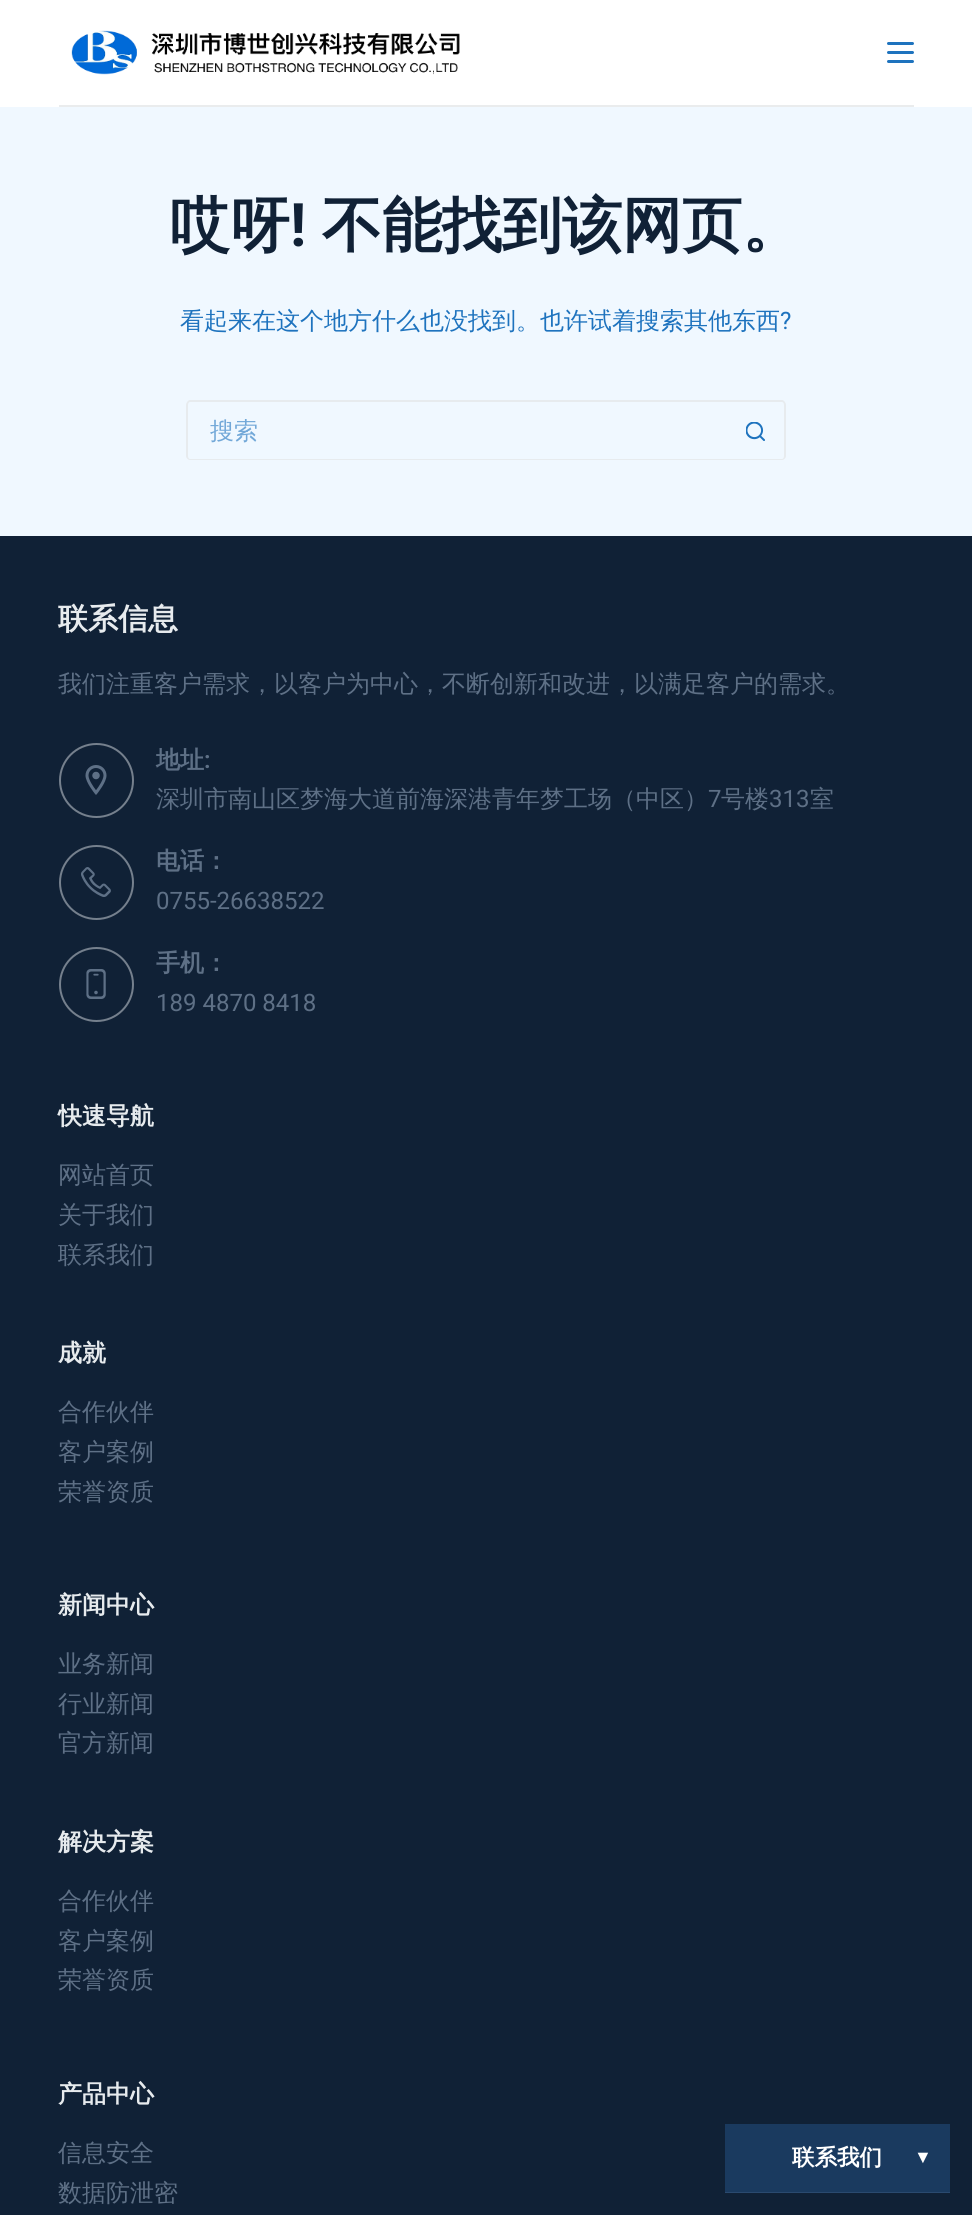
import math
import cairo


def use_color(cr, r, g, b):
  cr.set_source_rgb(r / 255, g / 255, b / 255)

def text(cr, x, y, s, family, size, color, bold=False, italic=False):
  cr.select_font_face(family, cairo.FONT_SLANT_ITALIC if italic else cairo.FONT_SLANT_NORMAL, cairo.FONT_WEIGHT_BOLD if bold else cairo.FONT_WEIGHT_NORMAL)
  cr.set_font_size(size)
  use_color(cr, *color)
  cr.move_to(x, y)
  cr.show_text(s)

def box(cr, x, y, w, h, *color):
  use_color(cr, *color)
  cr.rectangle(x, y, w, h)
  cr.fill()

def round_rect(cr, x, y, w, h, r):
  cr.new_sub_path()
  for i, (u, v) in enumerate([(x + w - r, y + h - r), (x + r, y + h - r), (x + r, y + r), (x + w - r, y + r)]):
    cr.arc(u, v, r, i * math.pi / 2, (i + 1) * math.pi / 2)
  cr.close_path()

def picture(cr, path, x, y, w, h):
  cr.save()
  cr.set_source_surface(cairo.ImageSurface.create_from_png(path), x, y)
  cr.rectangle(x, y, w, h)
  cr.fill()
  cr.restore()

def draw(cr):
  use_color(cr, 240, 248, 255)
  cr.paint()
  box(cr, 0, 0, 972, 107, 255, 255, 255)
  box(cr, 59, 105, 855, 2, 234, 236, 237)
  picture(cr, "img_01.png", 71, 30, 389, 45)
  use_color(cr, 30, 115, 190)
  round_rect(cr, 887, 42, 27, 3, 1.5)
  cr.fill()
  round_rect(cr, 887, 51, 27, 3, 1.5)
  cr.fill()
  round_rect(cr, 887, 60, 27, 3, 1.5)
  cr.fill()
  use_color(cr, 231, 235, 238)
  cr.set_fill_rule(cairo.FILL_RULE_EVEN_ODD)
  cr.new_path()
  cr.move_to(190, 400)
  cr.line_to(726, 400)
  cr.line_to(726, 460)
  cr.line_to(190, 460)
  cr.curve_to(188, 460, 186, 458, 186, 456)
  cr.line_to(186, 405)
  cr.curve_to(186, 403, 188, 400, 190, 400)
  cr.close_path()
  cr.move_to(190, 402)
  cr.line_to(726, 402)
  cr.line_to(726, 459)
  cr.line_to(190, 459)
  cr.curve_to(189, 459, 188, 458, 188, 456)
  cr.line_to(188, 405)
  cr.curve_to(188, 403, 189, 402, 190, 402)
  cr.close_path()
  cr.fill()
  cr.new_path()
  cr.move_to(726, 400)
  cr.line_to(782, 400)
  cr.curve_to(784, 400, 786, 403, 786, 405)
  cr.line_to(786, 456)
  cr.curve_to(786, 458, 784, 460, 782, 460)
  cr.line_to(726, 460)
  cr.close_path()
  cr.move_to(726, 402)
  cr.line_to(782, 402)
  cr.curve_to(783, 402, 784, 403, 784, 405)
  cr.line_to(784, 456)
  cr.curve_to(784, 458, 783, 459, 782, 459)
  cr.line_to(726, 459)
  cr.close_path()
  cr.fill()
  picture(cr, "img_02.png", 746, 422, 19, 19)
  box(cr, 0, 536, 972, 1679, 16, 33, 54)
  cr.arc(96.5, 780.5, 36.5, 0, 2 * math.pi)
  use_color(cr, 117, 128, 141)
  cr.stroke()
  picture(cr, "img_03.png", 85, 765, 22, 30)
  cr.arc(96.5, 882.5, 36.5, 0, 2 * math.pi)
  cr.stroke()
  picture(cr, "img_04.png", 81, 867, 30, 30)
  cr.arc(96.5, 984.5, 36.5, 0, 2 * math.pi)
  cr.stroke()
  picture(cr, "img_05.png", 86, 969, 20, 30)
  box(cr, 725, 2124, 225, 68, 26, 58, 95)
  box(cr, 725, 2192, 225, 1, 42, 74, 111)
  text(cr, 170, 246, "哎呀", "WenQuanYi Zen Hei", 60, (16, 33, 54), bold=True)
  text(cr, 290, 246, "!", "Roboto", 60, (16, 33, 54), bold=True)
  text(cr, 322, 246, "不能找到该网页。", "WenQuanYi Zen Hei", 60, (16, 33, 54), bold=True)
  text(cr, 180, 329, "看起来在这个地方什么也没找到。也许试着搜索其他东西", "WenQuanYi Zen Hei Medium", 24, (30, 115, 190))
  text(cr, 780, 329, "?", "Roboto", 24, (30, 115, 190))
  text(cr, 210, 439, "搜索", "WenQuanYi Zen Hei Medium", 24, (114, 168, 216))
  text(cr, 58, 629, "联系信息", "WenQuanYi Zen Hei", 30, (231, 235, 238), bold=True)
  text(cr, 58, 692, "我们注重客户需求，以客户为中心，不断创新和改进，以满足客户的需求。", "WenQuanYi Zen Hei Medium", 24, (94, 112, 134))
  text(cr, 156, 768, "地址", "WenQuanYi Zen Hei", 24, (94, 112, 134), bold=True)
  text(cr, 204, 768, ":", "Roboto SemiBold", 24, (94, 112, 134))
  text(cr, 156, 807, "深圳市南山区梦海大道前海深港青年梦工场（中区）", "WenQuanYi Zen Hei Medium", 24, (94, 112, 134))
  text(cr, 708, 807, "7", "Roboto", 24, (94, 112, 134))
  text(cr, 721, 807, "号楼", "WenQuanYi Zen Hei Medium", 24, (94, 112, 134))
  text(cr, 769, 807, "313", "Roboto", 24, (94, 112, 134))
  text(cr, 810, 807, "室", "WenQuanYi Zen Hei Medium", 24, (94, 112, 134))
  text(cr, 156, 869, "电话：", "WenQuanYi Zen Hei", 24, (94, 112, 134), bold=True)
  text(cr, 156, 909, "0755-26638522", "Roboto", 24, (94, 112, 134))
  text(cr, 156, 971, "手机：", "WenQuanYi Zen Hei", 24, (94, 112, 134), bold=True)
  text(cr, 156, 1011, "189 4870 8418", "Roboto", 24, (94, 112, 134))
  text(cr, 58, 1124, "快速导航", "WenQuanYi Zen Hei", 24, (231, 235, 238), bold=True)
  text(cr, 58, 1183, "网站首页", "WenQuanYi Zen Hei Medium", 24, (94, 112, 134))
  text(cr, 58, 1223, "关于我们", "WenQuanYi Zen Hei Medium", 24, (94, 112, 134))
  text(cr, 58, 1263, "联系我们", "WenQuanYi Zen Hei Medium", 24, (94, 112, 134))
  text(cr, 58, 1361, "成就", "WenQuanYi Zen Hei", 24, (231, 235, 238), bold=True)
  text(cr, 58, 1420, "合作伙伴", "WenQuanYi Zen Hei Medium", 24, (94, 112, 134))
  text(cr, 58, 1460, "客户案例", "WenQuanYi Zen Hei Medium", 24, (94, 112, 134))
  text(cr, 58, 1500, "荣誉资质", "WenQuanYi Zen Hei Medium", 24, (94, 112, 134))
  text(cr, 58, 1613, "新闻中心", "WenQuanYi Zen Hei", 24, (231, 235, 238), bold=True)
  text(cr, 58, 1672, "业务新闻", "WenQuanYi Zen Hei Medium", 24, (94, 112, 134))
  text(cr, 58, 1712, "行业新闻", "WenQuanYi Zen Hei Medium", 24, (94, 112, 134))
  text(cr, 58, 1751, "官方新闻", "WenQuanYi Zen Hei Medium", 24, (94, 112, 134))
  text(cr, 58, 1850, "解决方案", "WenQuanYi Zen Hei", 24, (231, 235, 238), bold=True)
  text(cr, 58, 1909, "合作伙伴", "WenQuanYi Zen Hei Medium", 24, (94, 112, 134))
  text(cr, 58, 1949, "客户案例", "WenQuanYi Zen Hei Medium", 24, (94, 112, 134))
  text(cr, 58, 1988, "荣誉资质", "WenQuanYi Zen Hei Medium", 24, (94, 112, 134))
  text(cr, 58, 2102, "产品中心", "WenQuanYi Zen Hei", 24, (231, 235, 238), bold=True)
  text(cr, 58, 2161, "信息安全", "WenQuanYi Zen Hei Medium", 24, (94, 112, 134))
  text(cr, 58, 2201, "数据防泄密", "WenQuanYi Zen Hei Medium", 24, (94, 112, 134))
  text(cr, 792, 2165, "联系我们", "WenQuanYi Zen Hei", 22.5, (255, 255, 255), bold=True)
  text(cr, 914, 2163, "▼", "Liberation Sans", 18, (255, 255, 255), bold=True)


surface = cairo.ImageSurface(cairo.FORMAT_RGB24, 972, 2215)
cr = cairo.Context(surface)
options = cairo.FontOptions()
options.set_hint_metrics(cairo.HINT_METRICS_OFF)
options.set_hint_style(cairo.HINT_STYLE_NONE)
cr.set_font_options(options)
cr.set_miter_limit(4)
draw(cr)
surface.write_to_png("out.png")
